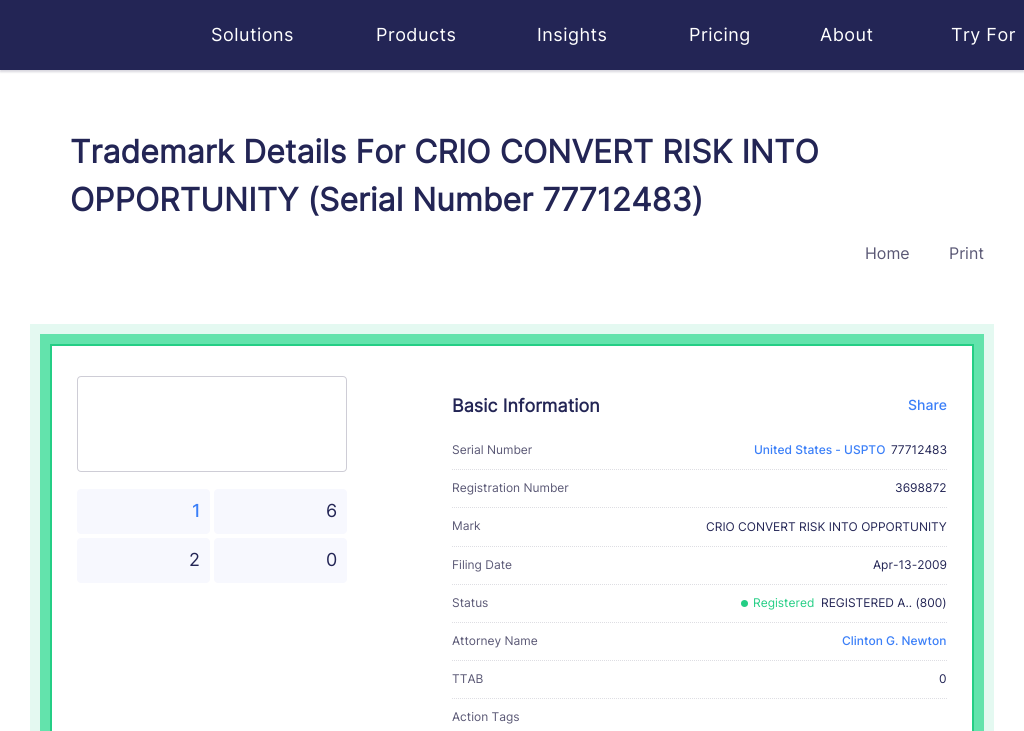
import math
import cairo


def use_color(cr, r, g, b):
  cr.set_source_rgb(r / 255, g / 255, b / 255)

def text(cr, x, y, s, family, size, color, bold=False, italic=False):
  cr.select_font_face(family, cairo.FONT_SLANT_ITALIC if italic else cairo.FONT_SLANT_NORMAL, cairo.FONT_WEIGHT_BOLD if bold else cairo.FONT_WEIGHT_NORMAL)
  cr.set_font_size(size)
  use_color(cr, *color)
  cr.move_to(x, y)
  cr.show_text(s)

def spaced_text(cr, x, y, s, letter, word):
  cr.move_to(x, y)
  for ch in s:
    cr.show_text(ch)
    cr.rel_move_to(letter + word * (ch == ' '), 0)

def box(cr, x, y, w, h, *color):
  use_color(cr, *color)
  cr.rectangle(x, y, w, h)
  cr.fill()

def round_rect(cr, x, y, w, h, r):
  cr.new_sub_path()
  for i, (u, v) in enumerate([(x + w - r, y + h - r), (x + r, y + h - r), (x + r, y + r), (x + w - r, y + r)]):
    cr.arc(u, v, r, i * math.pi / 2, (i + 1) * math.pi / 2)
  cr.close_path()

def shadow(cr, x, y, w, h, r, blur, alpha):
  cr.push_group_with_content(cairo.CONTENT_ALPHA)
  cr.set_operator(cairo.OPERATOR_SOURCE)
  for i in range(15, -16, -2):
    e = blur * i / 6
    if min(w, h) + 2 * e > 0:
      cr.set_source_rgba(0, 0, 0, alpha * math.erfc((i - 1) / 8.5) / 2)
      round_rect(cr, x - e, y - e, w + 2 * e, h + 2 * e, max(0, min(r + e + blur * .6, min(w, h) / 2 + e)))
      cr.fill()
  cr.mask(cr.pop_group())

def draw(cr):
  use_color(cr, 255, 255, 255)
  cr.paint()
  use_color(cr, 55, 52, 89)
  shadow(cr, 0, 2, 1024, 70, 0, 1, 0.2)
  box(cr, 0, 0, 1024, 70, 35, 37, 85)
  cr.new_path()
  cr.move_to(37.5, 331.5)
  cr.line_to(986.5, 331.5)
  cr.line_to(986.5, 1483.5)
  cr.line_to(37.5, 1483.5)
  cr.close_path()
  use_color(cr, 228, 249, 241)
  cr.set_line_width(15)
  cr.stroke()
  cr.rectangle(45, 339, 934, 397)
  use_color(cr, 99, 227, 172)
  cr.set_line_width(10)
  cr.stroke()
  cr.rectangle(51, 345, 922, 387)
  use_color(cr, 36, 206, 133)
  cr.set_line_width(2)
  cr.stroke()
  round_rect(cr, 77.5, 376.5, 269, 95, 3.5)
  use_color(cr, 206, 205, 214)
  cr.set_line_width(1)
  cr.stroke()
  use_color(cr, 247, 248, 254)
  round_rect(cr, 77, 489, 133, 45, 4)
  cr.fill()
  round_rect(cr, 214, 489, 133, 45, 4)
  cr.fill()
  round_rect(cr, 77, 538, 133, 45, 4)
  cr.fill()
  round_rect(cr, 214, 538, 133, 45, 4)
  cr.fill()
  cr.new_path()
  cr.move_to(452, 469.5)
  cr.line_to(947, 469.5)
  use_color(cr, 222, 222, 227)
  cr.set_dash([1, 1])
  cr.stroke()
  cr.new_path()
  cr.move_to(452, 507.5)
  cr.line_to(947, 507.5)
  cr.stroke()
  cr.new_path()
  cr.move_to(452, 546.5)
  cr.line_to(947, 546.5)
  cr.stroke()
  cr.new_path()
  cr.move_to(452, 584.5)
  cr.line_to(947, 584.5)
  cr.stroke()
  cr.new_path()
  cr.move_to(452, 622.5)
  cr.line_to(947, 622.5)
  cr.stroke()
  use_color(cr, 36, 206, 133)
  cr.arc(744.5, 603.5, 3.5, 0, 2 * math.pi)
  cr.fill()
  cr.new_path()
  cr.move_to(452, 660.5)
  cr.line_to(947, 660.5)
  use_color(cr, 222, 222, 227)
  cr.stroke()
  cr.new_path()
  cr.move_to(452, 698.5)
  cr.line_to(947, 698.5)
  cr.stroke()
  cr.select_font_face("Inter")
  cr.set_font_size(18)
  use_color(cr, 255, 255, 255)
  spaced_text(cr, 211, 41, "Solutions", 0.5, 0)
  spaced_text(cr, 376, 41, "Products", 0.5, 0)
  spaced_text(cr, 537, 41, "Insights", 0.5, 0)
  spaced_text(cr, 689, 41, "Pricing", 0.5, 0)
  spaced_text(cr, 820, 41, "About", 0.5, 0)
  spaced_text(cr, 951, 41, "Try For", 0.5, 0)
  text(cr, 70, 163, "Trademark Details For CRIO CONVERT RISK INTO", "Inter", 32, (35, 37, 85), bold=True)
  text(cr, 70, 211, "OPPORTUNITY (Serial Number 77712483)", "Inter", 32, (35, 37, 85), bold=True)
  text(cr, 865, 259, "Home", "Inter", 16, (90, 88, 117))
  text(cr, 949, 259, "Print", "Inter", 16, (90, 88, 117))
  text(cr, 192, 517, "1", "Inter Medium", 18, (59, 127, 248))
  text(cr, 326, 517, "6", "Inter", 18, (35, 37, 85))
  text(cr, 189, 566, "2", "Inter", 18, (35, 37, 85))
  text(cr, 326, 566, "0", "Inter", 18, (35, 37, 85))
  text(cr, 452, 412, "Basic Information", "Inter", 18, (35, 37, 85), bold=True)
  text(cr, 908, 410, "Share", "Inter Medium", 14, (59, 127, 248))
  text(cr, 452, 454, "Serial Number", "Inter", 12, (90, 88, 117))
  text(cr, 754, 454, "United States - USPTO", "Inter Medium", 12, (59, 127, 248))
  text(cr, 891, 454, "77712483", "Inter", 12, (35, 37, 85))
  text(cr, 452, 492, "Registration Number", "Inter", 12, (90, 88, 117))
  text(cr, 895, 492, "3698872", "Inter", 12, (35, 37, 85))
  text(cr, 452, 530, "Mark", "Inter", 12, (90, 88, 117))
  text(cr, 706, 531, "CRIO CONVERT RISK INTO OPPORTUNITY", "Inter", 12, (35, 37, 85))
  text(cr, 452, 569, "Filing Date", "Inter", 12, (90, 88, 117))
  text(cr, 873, 569, "Apr-13-2009", "Inter", 12, (35, 37, 85))
  text(cr, 452, 607, "Status", "Inter", 12, (90, 88, 117))
  text(cr, 753, 607, "Registered", "Inter", 12, (36, 206, 133))
  text(cr, 821, 607, "REGISTERED A.. (800)", "Inter", 12, (35, 37, 85))
  text(cr, 452, 645, "Attorney Name", "Inter", 12, (90, 88, 117))
  text(cr, 842, 645, "Clinton G. Newton", "Inter Medium", 12, (59, 127, 248))
  text(cr, 452, 683, "TTAB", "Inter", 12, (90, 88, 117))
  text(cr, 939, 683, "0", "Inter", 12, (35, 37, 85))
  text(cr, 452, 721, "Action Tags", "Inter", 12, (90, 88, 117))


surface = cairo.ImageSurface(cairo.FORMAT_RGB24, 1024, 731)
cr = cairo.Context(surface)
options = cairo.FontOptions()
options.set_hint_metrics(cairo.HINT_METRICS_OFF)
options.set_hint_style(cairo.HINT_STYLE_NONE)
cr.set_font_options(options)
cr.set_miter_limit(4)
draw(cr)
surface.write_to_png("out.png")
